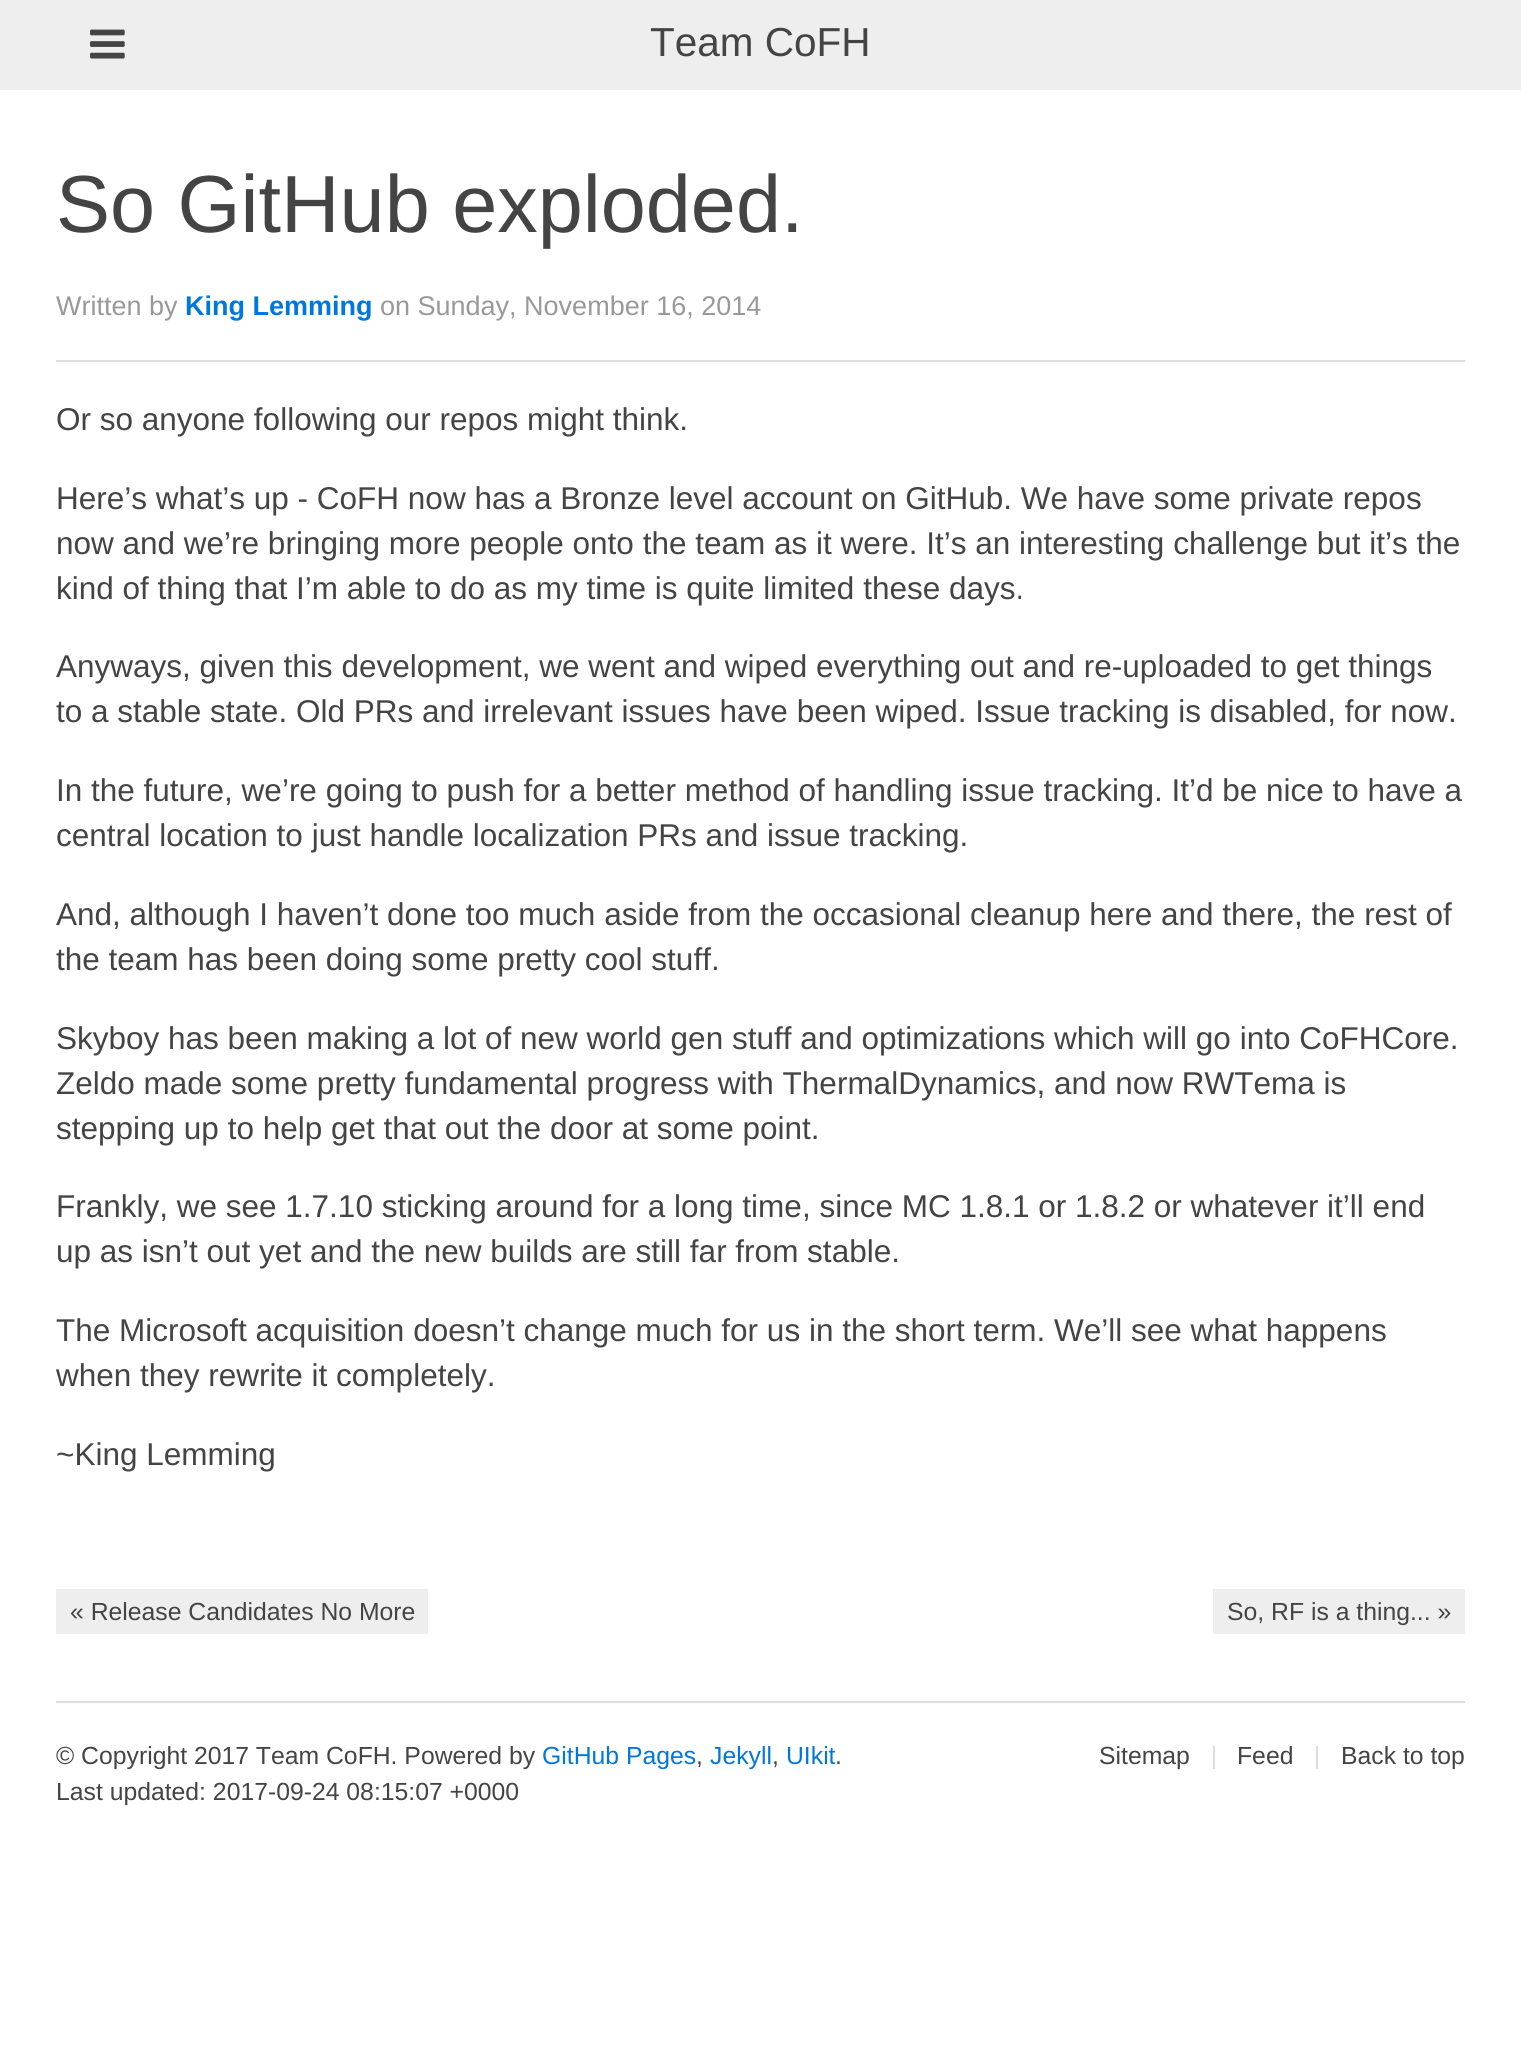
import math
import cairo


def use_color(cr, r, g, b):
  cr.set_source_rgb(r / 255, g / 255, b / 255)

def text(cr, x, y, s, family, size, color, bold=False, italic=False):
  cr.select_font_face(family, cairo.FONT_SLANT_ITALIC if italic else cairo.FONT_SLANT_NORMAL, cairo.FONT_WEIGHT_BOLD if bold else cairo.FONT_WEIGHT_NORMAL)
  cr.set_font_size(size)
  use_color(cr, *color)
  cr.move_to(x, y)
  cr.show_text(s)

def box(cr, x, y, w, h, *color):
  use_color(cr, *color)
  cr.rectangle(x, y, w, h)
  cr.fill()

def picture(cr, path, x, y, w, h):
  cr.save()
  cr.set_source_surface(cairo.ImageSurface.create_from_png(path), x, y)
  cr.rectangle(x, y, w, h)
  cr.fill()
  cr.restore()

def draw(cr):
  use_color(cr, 255, 255, 255)
  cr.paint()
  box(cr, 0, 0, 1521, 90, 238, 238, 238)
  picture(cr, "img_01.png", 90, 29, 35, 30)
  box(cr, 56, 360, 1409, 2, 221, 221, 221)
  box(cr, 56, 1589, 372, 45, 238, 238, 238)
  box(cr, 1213, 1589, 252, 45, 238, 238, 238)
  box(cr, 56, 1701, 1409, 2, 221, 221, 221)
  box(cr, 1213, 1746, 2, 23, 221, 221, 221)
  box(cr, 1316, 1746, 2, 23, 221, 221, 221)
  text(cr, 650, 56, "Team CoFH", "Liberation Sans", 40.5, (68, 68, 68))
  text(cr, 56, 232, "So GitHub exploded.", "Liberation Sans", 81, (68, 68, 68))
  text(cr, 56, 315, "Written by", "Liberation Sans", 27, (153, 153, 153))
  text(cr, 185, 315, "King Lemming", "Liberation Sans", 27, (0, 119, 221), bold=True)
  text(cr, 380, 315, "on Sunday, November 16, 2014", "Liberation Sans", 27, (153, 153, 153))
  text(cr, 56, 430, "Or so anyone following our repos might think.", "Liberation Sans", 31.5, (68, 68, 68))
  text(cr, 56, 509, "Here’s what’s up - CoFH now has a Bronze level account on GitHub. We have some private repos", "Liberation Sans", 31.5, (68, 68, 68))
  text(cr, 56, 554, "now and we’re bringing more people onto the team as it were. It’s an interesting challenge but it’s the", "Liberation Sans", 31.5, (68, 68, 68))
  text(cr, 56, 599, "kind of thing that I’m able to do as my time is quite limited these days.", "Liberation Sans", 31.5, (68, 68, 68))
  text(cr, 56, 677, "Anyways, given this development, we went and wiped everything out and re-uploaded to get things", "Liberation Sans", 31.5, (68, 68, 68))
  text(cr, 56, 722, "to a stable state. Old PRs and irrelevant issues have been wiped. Issue tracking is disabled, for now.", "Liberation Sans", 31.5, (68, 68, 68))
  text(cr, 56, 801, "In the future, we’re going to push for a better method of handling issue tracking. It’d be nice to have a", "Liberation Sans", 31.5, (68, 68, 68))
  text(cr, 56, 846, "central location to just handle localization PRs and issue tracking.", "Liberation Sans", 31.5, (68, 68, 68))
  text(cr, 56, 925, "And, although I haven’t done too much aside from the occasional cleanup here and there, the rest of", "Liberation Sans", 31.5, (68, 68, 68))
  text(cr, 56, 970, "the team has been doing some pretty cool stuff.", "Liberation Sans", 31.5, (68, 68, 68))
  text(cr, 56, 1049, "Skyboy has been making a lot of new world gen stuff and optimizations which will go into CoFHCore.", "Liberation Sans", 31.5, (68, 68, 68))
  text(cr, 56, 1094, "Zeldo made some pretty fundamental progress with ThermalDynamics, and now RWTema is", "Liberation Sans", 31.5, (68, 68, 68))
  text(cr, 56, 1139, "stepping up to help get that out the door at some point.", "Liberation Sans", 31.5, (68, 68, 68))
  text(cr, 56, 1217, "Frankly, we see 1.7.10 sticking around for a long time, since MC 1.8.1 or 1.8.2 or whatever it’ll end", "Liberation Sans", 31.5, (68, 68, 68))
  text(cr, 56, 1262, "up as isn’t out yet and the new builds are still far from stable.", "Liberation Sans", 31.5, (68, 68, 68))
  text(cr, 56, 1341, "The Microsoft acquisition doesn’t change much for us in the short term. We’ll see what happens", "Liberation Sans", 31.5, (68, 68, 68))
  text(cr, 56, 1386, "when they rewrite it completely.", "Liberation Sans", 31.5, (68, 68, 68))
  text(cr, 56, 1465, "~King Lemming", "Liberation Sans", 31.5, (68, 68, 68))
  text(cr, 70, 1620, "« Release Candidates No More", "Liberation Sans", 24.75, (68, 68, 68))
  text(cr, 1227, 1620, "So, RF is a thing... »", "Liberation Sans", 24.75, (68, 68, 68))
  text(cr, 56, 1764, "© Copyright 2017 Team CoFH. Powered by", "Liberation Sans", 24.75, (68, 68, 68))
  text(cr, 542, 1764, "GitHub Pages", "Liberation Sans", 24.75, (0, 119, 221))
  text(cr, 696, 1764, ",", "Liberation Sans", 24.75, (68, 68, 68))
  text(cr, 710, 1764, "Jekyll", "Liberation Sans", 24.75, (0, 119, 221))
  text(cr, 772, 1764, ",", "Liberation Sans", 24.75, (68, 68, 68))
  text(cr, 786, 1764, "UIkit", "Liberation Sans", 24.75, (0, 119, 221))
  text(cr, 835, 1764, ".", "Liberation Sans", 24.75, (68, 68, 68))
  text(cr, 56, 1800, "Last updated: 2017-09-24 08:15:07 +0000", "Liberation Sans", 24.75, (68, 68, 68))
  text(cr, 1099, 1764, "Sitemap", "Liberation Sans", 24.75, (68, 68, 68))
  text(cr, 1237, 1764, "Feed", "Liberation Sans", 24.75, (68, 68, 68))
  text(cr, 1341, 1764, "Back to top", "Liberation Sans", 24.75, (68, 68, 68))


surface = cairo.ImageSurface(cairo.FORMAT_RGB24, 1521, 2061)
cr = cairo.Context(surface)
options = cairo.FontOptions()
options.set_hint_metrics(cairo.HINT_METRICS_OFF)
options.set_hint_style(cairo.HINT_STYLE_NONE)
cr.set_font_options(options)
cr.set_miter_limit(4)
draw(cr)
surface.write_to_png("out.png")
